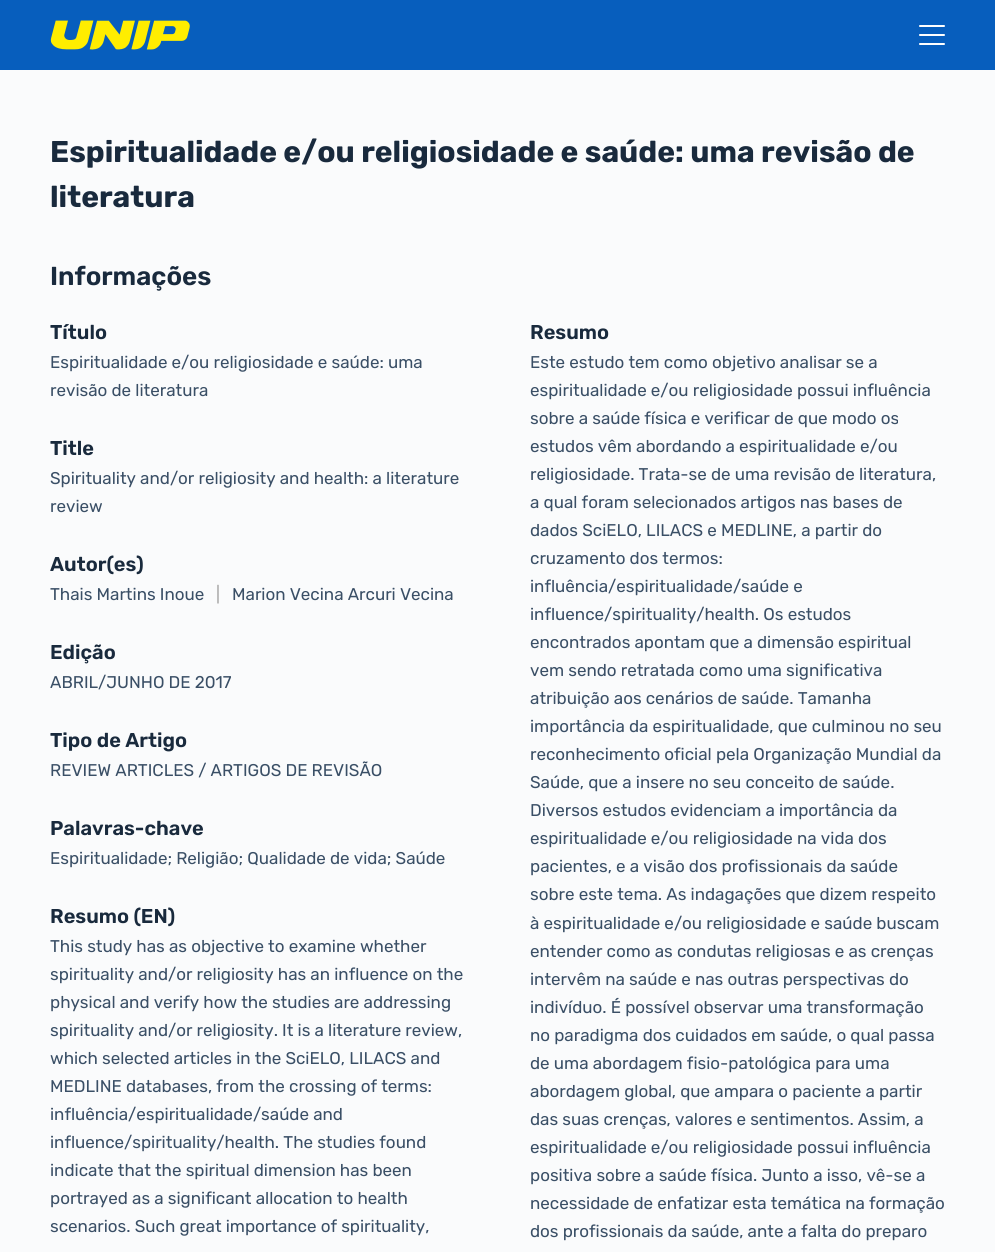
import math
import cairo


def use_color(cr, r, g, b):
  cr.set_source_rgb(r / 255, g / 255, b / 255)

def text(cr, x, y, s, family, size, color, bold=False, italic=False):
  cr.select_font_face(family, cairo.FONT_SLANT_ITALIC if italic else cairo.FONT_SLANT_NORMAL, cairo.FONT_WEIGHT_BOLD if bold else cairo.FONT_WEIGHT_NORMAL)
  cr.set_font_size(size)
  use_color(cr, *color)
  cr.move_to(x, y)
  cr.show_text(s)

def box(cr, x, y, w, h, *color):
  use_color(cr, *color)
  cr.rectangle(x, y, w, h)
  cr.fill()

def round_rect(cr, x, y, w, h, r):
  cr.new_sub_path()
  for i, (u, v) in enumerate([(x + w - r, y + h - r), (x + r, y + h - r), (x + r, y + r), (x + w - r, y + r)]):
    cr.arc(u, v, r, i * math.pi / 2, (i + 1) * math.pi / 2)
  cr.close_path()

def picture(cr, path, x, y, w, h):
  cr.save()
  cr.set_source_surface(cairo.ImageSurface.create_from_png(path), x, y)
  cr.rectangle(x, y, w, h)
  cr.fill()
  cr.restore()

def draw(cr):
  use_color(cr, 250, 251, 252)
  cr.paint()
  box(cr, 0, 0, 995, 70, 7, 94, 189)
  picture(cr, "img_01.png", 50, 20, 140, 30)
  use_color(cr, 255, 255, 255)
  round_rect(cr, 919, 25, 26, 2, 1)
  cr.fill()
  round_rect(cr, 919, 34, 26, 2, 1)
  cr.fill()
  round_rect(cr, 919, 43, 26, 2, 1)
  cr.fill()
  text(cr, 50, 162, "Espiritualidade e/ou religiosidade e saúde: uma revisão de", "Rubik", 30, (25, 42, 61), bold=True)
  text(cr, 50, 207, "literatura", "Rubik", 30, (25, 42, 61), bold=True)
  text(cr, 50, 285, "Informações", "Rubik SemiBold", 26, (25, 42, 61))
  text(cr, 50, 339, "Título", "Rubik SemiBold", 20, (25, 42, 61))
  text(cr, 50, 368, "Espiritualidade e/ou religiosidade e saúde: uma", "Rubik", 17, (58, 79, 102))
  text(cr, 50, 396, "revisão de literatura", "Rubik", 17, (58, 79, 102))
  text(cr, 530, 339, "Resumo", "Rubik SemiBold", 20, (25, 42, 61))
  text(cr, 530, 368, "Este estudo tem como objetivo analisar se a", "Rubik", 17, (58, 79, 102))
  text(cr, 530, 396, "espiritualidade e/ou religiosidade possui influência", "Rubik", 17, (58, 79, 102))
  text(cr, 530, 424, "sobre a saúde física e verificar de que modo os", "Rubik", 17, (58, 79, 102))
  text(cr, 530, 452, "estudos vêm abordando a espiritualidade e/ou", "Rubik", 17, (58, 79, 102))
  text(cr, 530, 480, "religiosidade. Trata-se de uma revisão de literatura,", "Rubik", 17, (58, 79, 102))
  text(cr, 530, 508, "a qual foram selecionados artigos nas bases de", "Rubik", 17, (58, 79, 102))
  text(cr, 530, 536, "dados SciELO, LILACS e MEDLINE, a partir do", "Rubik", 17, (58, 79, 102))
  text(cr, 530, 564, "cruzamento dos termos:", "Rubik", 17, (58, 79, 102))
  text(cr, 530, 592, "influência/espiritualidade/saúde e", "Rubik", 17, (58, 79, 102))
  text(cr, 530, 620, "influence/spirituality/health. Os estudos", "Rubik", 17, (58, 79, 102))
  text(cr, 530, 648, "encontrados apontam que a dimensão espiritual", "Rubik", 17, (58, 79, 102))
  text(cr, 530, 676, "vem sendo retratada como uma significativa", "Rubik", 17, (58, 79, 102))
  text(cr, 530, 704, "atribuição aos cenários de saúde. Tamanha", "Rubik", 17, (58, 79, 102))
  text(cr, 530, 732, "importância da espiritualidade, que culminou no seu", "Rubik", 17, (58, 79, 102))
  text(cr, 530, 760, "reconhecimento oficial pela Organização Mundial da", "Rubik", 17, (58, 79, 102))
  text(cr, 530, 788, "Saúde, que a insere no seu conceito de saúde.", "Rubik", 17, (58, 79, 102))
  text(cr, 530, 816, "Diversos estudos evidenciam a importância da", "Rubik", 17, (58, 79, 102))
  text(cr, 530, 844, "espiritualidade e/ou religiosidade na vida dos", "Rubik", 17, (58, 79, 102))
  text(cr, 530, 872, "pacientes, e a visão dos profissionais da saúde", "Rubik", 17, (58, 79, 102))
  text(cr, 530, 900, "sobre este tema. As indagações que dizem respeito", "Rubik", 17, (58, 79, 102))
  text(cr, 530, 929, "à espiritualidade e/ou religiosidade e saúde buscam", "Rubik", 17, (58, 79, 102))
  text(cr, 530, 957, "entender como as condutas religiosas e as crenças", "Rubik", 17, (58, 79, 102))
  text(cr, 530, 985, "intervêm na saúde e nas outras perspectivas do", "Rubik", 17, (58, 79, 102))
  text(cr, 530, 1013, "indivíduo. É possível observar uma transformação", "Rubik", 17, (58, 79, 102))
  text(cr, 530, 1041, "no paradigma dos cuidados em saúde, o qual passa", "Rubik", 17, (58, 79, 102))
  text(cr, 530, 1069, "de uma abordagem fisio-patológica para uma", "Rubik", 17, (58, 79, 102))
  text(cr, 530, 1097, "abordagem global, que ampara o paciente a partir", "Rubik", 17, (58, 79, 102))
  text(cr, 530, 1125, "das suas crenças, valores e sentimentos. Assim, a", "Rubik", 17, (58, 79, 102))
  text(cr, 530, 1153, "espiritualidade e/ou religiosidade possui influência", "Rubik", 17, (58, 79, 102))
  text(cr, 530, 1181, "positiva sobre a saúde física. Junto a isso, vê-se a", "Rubik", 17, (58, 79, 102))
  text(cr, 530, 1209, "necessidade de enfatizar esta temática na formação", "Rubik", 17, (58, 79, 102))
  text(cr, 530, 1237, "dos profissionais da saúde, ante a falta do preparo", "Rubik", 17, (58, 79, 102))
  text(cr, 50, 455, "Title", "Rubik SemiBold", 20, (25, 42, 61))
  text(cr, 50, 484, "Spirituality and/or religiosity and health: a literature", "Rubik", 17, (58, 79, 102))
  text(cr, 50, 512, "review", "Rubik", 17, (58, 79, 102))
  text(cr, 50, 571, "Autor(es)", "Rubik SemiBold", 20, (25, 42, 61))
  text(cr, 50, 600, "Thais Martins Inoue", "Rubik", 17, (58, 79, 102))
  text(cr, 216, 600, "|", "Rubik", 17, (165, 165, 165))
  text(cr, 232, 600, "Marion Vecina Arcuri Vecina", "Rubik", 17, (58, 79, 102))
  text(cr, 50, 659, "Edição", "Rubik SemiBold", 20, (25, 42, 61))
  text(cr, 50, 688, "ABRIL/JUNHO DE 2017", "Rubik", 17, (58, 79, 102))
  text(cr, 50, 747, "Tipo de Artigo", "Rubik SemiBold", 20, (25, 42, 61))
  text(cr, 50, 776, "REVIEW ARTICLES / ARTIGOS DE REVISÃO", "Rubik", 17, (58, 79, 102))
  text(cr, 50, 835, "Palavras-chave", "Rubik SemiBold", 20, (25, 42, 61))
  text(cr, 50, 864, "Espiritualidade; Religião; Qualidade de vida; Saúde", "Rubik", 17, (58, 79, 102))
  text(cr, 50, 923, "Resumo (EN)", "Rubik SemiBold", 20, (25, 42, 61))
  text(cr, 50, 952, "This study has as objective to examine whether", "Rubik", 17, (58, 79, 102))
  text(cr, 50, 980, "spirituality and/or religiosity has an influence on the", "Rubik", 17, (58, 79, 102))
  text(cr, 50, 1008, "physical and verify how the studies are addressing", "Rubik", 17, (58, 79, 102))
  text(cr, 50, 1036, "spirituality and/or religiosity. It is a literature review,", "Rubik", 17, (58, 79, 102))
  text(cr, 50, 1064, "which selected articles in the SciELO, LILACS and", "Rubik", 17, (58, 79, 102))
  text(cr, 50, 1092, "MEDLINE databases, from the crossing of terms:", "Rubik", 17, (58, 79, 102))
  text(cr, 50, 1120, "influência/espiritualidade/saúde and", "Rubik", 17, (58, 79, 102))
  text(cr, 50, 1148, "influence/spirituality/health. The studies found", "Rubik", 17, (58, 79, 102))
  text(cr, 50, 1176, "indicate that the spiritual dimension has been", "Rubik", 17, (58, 79, 102))
  text(cr, 50, 1204, "portrayed as a significant allocation to health", "Rubik", 17, (58, 79, 102))
  text(cr, 50, 1232, "scenarios. Such great importance of spirituality,", "Rubik", 17, (58, 79, 102))


surface = cairo.ImageSurface(cairo.FORMAT_RGB24, 995, 1252)
cr = cairo.Context(surface)
options = cairo.FontOptions()
options.set_hint_metrics(cairo.HINT_METRICS_OFF)
options.set_hint_style(cairo.HINT_STYLE_NONE)
cr.set_font_options(options)
cr.set_miter_limit(4)
draw(cr)
surface.write_to_png("out.png")
